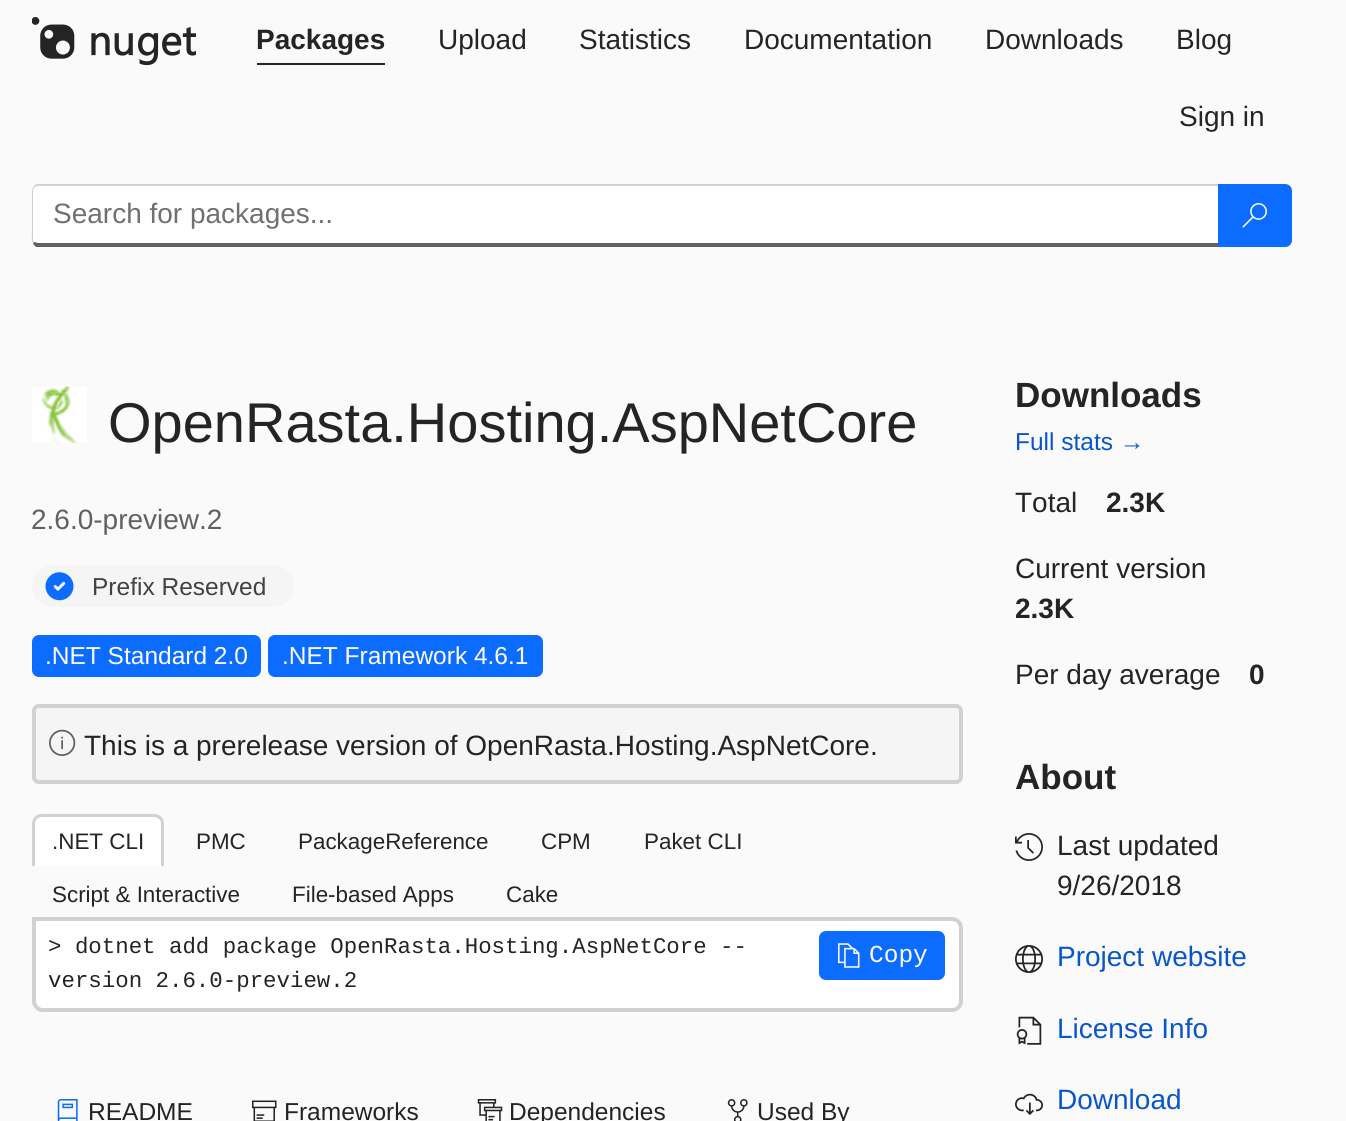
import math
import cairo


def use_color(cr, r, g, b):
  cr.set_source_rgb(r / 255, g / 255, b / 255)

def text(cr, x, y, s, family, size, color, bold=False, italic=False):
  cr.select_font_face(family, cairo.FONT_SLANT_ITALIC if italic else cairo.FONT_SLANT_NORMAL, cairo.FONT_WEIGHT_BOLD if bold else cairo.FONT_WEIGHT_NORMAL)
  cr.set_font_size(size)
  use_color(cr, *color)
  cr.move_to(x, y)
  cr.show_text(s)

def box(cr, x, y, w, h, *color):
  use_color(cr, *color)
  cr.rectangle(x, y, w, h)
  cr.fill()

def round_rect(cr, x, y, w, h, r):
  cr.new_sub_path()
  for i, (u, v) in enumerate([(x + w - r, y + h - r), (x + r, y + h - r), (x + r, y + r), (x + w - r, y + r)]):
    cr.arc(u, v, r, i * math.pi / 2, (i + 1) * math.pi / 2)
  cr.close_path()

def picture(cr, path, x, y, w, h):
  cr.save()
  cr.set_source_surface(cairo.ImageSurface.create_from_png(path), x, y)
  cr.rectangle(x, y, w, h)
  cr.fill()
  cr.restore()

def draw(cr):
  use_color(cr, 250, 250, 250)
  cr.paint()
  picture(cr, "img_01.png", 32, 17, 164, 49)
  box(cr, 257, 63, 128, 2, 36, 36, 36)
  use_color(cr, 255, 255, 255)
  cr.new_path()
  cr.move_to(38, 186)
  cr.line_to(1218, 186)
  cr.line_to(1218, 243)
  cr.line_to(38, 243)
  cr.curve_to(36, 243, 33, 242, 33, 240)
  cr.line_to(33, 191)
  cr.curve_to(33, 188, 36, 186, 38, 186)
  cr.close_path()
  cr.fill()
  use_color(cr, 209, 209, 209)
  cr.new_path()
  cr.move_to(38, 184)
  cr.curve_to(36, 184, 35, 185, 34, 186)
  cr.line_to(35, 187)
  cr.line_to(38, 186)
  cr.line_to(1218, 186)
  cr.line_to(1220, 184)
  cr.close_path()
  cr.fill()
  use_color(cr, 97, 97, 97)
  cr.new_path()
  cr.move_to(1220, 247)
  cr.line_to(36, 247)
  cr.curve_to(35, 246, 34, 245, 33, 244)
  cr.line_to(34, 242)
  cr.line_to(38, 243)
  cr.line_to(1218, 243)
  cr.close_path()
  cr.fill()
  use_color(cr, 209, 209, 209)
  cr.new_path()
  cr.move_to(34, 186)
  cr.line_to(32, 190)
  cr.line_to(32, 232)
  cr.curve_to(32, 235, 31, 240, 33, 244)
  cr.line_to(34, 242)
  cr.line_to(33, 240)
  cr.line_to(33, 190)
  cr.line_to(35, 187)
  cr.close_path()
  cr.fill()
  use_color(cr, 11, 108, 255)
  cr.new_path()
  cr.move_to(1218, 184)
  cr.line_to(1285, 184)
  cr.curve_to(1289, 184, 1292, 187, 1292, 191)
  cr.line_to(1292, 240)
  cr.curve_to(1292, 244, 1289, 247, 1285, 247)
  cr.line_to(1218, 247)
  cr.close_path()
  cr.fill()
  picture(cr, "img_02.png", 1242, 203, 25, 25)
  picture(cr, "img_03.png", 32, 386, 55, 57)
  use_color(cr, 245, 245, 245)
  round_rect(cr, 32, 565, 262, 42, 21)
  cr.fill()
  picture(cr, "img_04.png", 45, 572, 29, 29)
  use_color(cr, 11, 108, 255)
  round_rect(cr, 32, 635, 229, 42, 7)
  cr.fill()
  round_rect(cr, 268, 635, 275, 42, 7)
  cr.fill()
  use_color(cr, 245, 245, 245)
  round_rect(cr, 34, 706, 927, 76, 5)
  cr.fill_preserve()
  use_color(cr, 209, 209, 209)
  cr.set_line_width(4)
  cr.stroke()
  picture(cr, "img_05.png", 49, 729, 27, 27)
  use_color(cr, 255, 255, 255)
  cr.new_path()
  cr.move_to(43, 814)
  cr.line_to(154, 814)
  cr.curve_to(160, 814, 165, 819, 165, 825)
  cr.line_to(165, 866)
  cr.line_to(32, 866)
  cr.line_to(32, 825)
  cr.curve_to(32, 819, 37, 814, 43, 814)
  cr.close_path()
  cr.fill()
  use_color(cr, 209, 209, 209)
  cr.set_fill_rule(cairo.FILL_RULE_EVEN_ODD)
  cr.new_path()
  cr.move_to(42, 814)
  cr.line_to(154, 814)
  cr.curve_to(160, 814, 164, 818, 164, 824)
  cr.line_to(164, 866)
  cr.line_to(32, 866)
  cr.line_to(32, 824)
  cr.curve_to(32, 818, 36, 814, 42, 814)
  cr.close_path()
  cr.move_to(42, 817)
  cr.line_to(154, 817)
  cr.curve_to(158, 817, 161, 820, 161, 824)
  cr.line_to(161, 866)
  cr.line_to(35, 866)
  cr.line_to(35, 824)
  cr.curve_to(35, 820, 38, 817, 42, 817)
  cr.close_path()
  cr.fill()
  use_color(cr, 255, 255, 255)
  cr.new_path()
  cr.move_to(34, 919)
  cr.line_to(952, 919)
  cr.curve_to(957, 919, 961, 923, 961, 928)
  cr.line_to(961, 1001)
  cr.curve_to(961, 1006, 957, 1010, 952, 1010)
  cr.line_to(43, 1010)
  cr.curve_to(38, 1010, 34, 1006, 34, 1001)
  cr.close_path()
  cr.fill_preserve()
  use_color(cr, 209, 209, 209)
  cr.stroke()
  use_color(cr, 11, 108, 255)
  round_rect(cr, 819, 931, 126, 49, 7)
  cr.fill()
  picture(cr, "img_06.png", 838, 943, 22, 25)
  picture(cr, "img_07.png", 57, 1099, 21, 22)
  picture(cr, "img_08.png", 252, 1100, 25, 21)
  picture(cr, "img_09.png", 477, 1099, 26, 22)
  picture(cr, "img_10.png", 727, 1099, 21, 22)
  picture(cr, "img_11.png", 1015, 833, 28, 28)
  picture(cr, "img_12.png", 1015, 945, 28, 28)
  picture(cr, "img_13.png", 1016, 1016, 26, 29)
  picture(cr, "img_14.png", 1015, 1093, 28, 22)
  text(cr, 256, 49, "Packages", "Liberation Sans", 28, (36, 36, 36), bold=True)
  text(cr, 438, 49, "Upload", "Liberation Sans", 28, (36, 36, 36))
  text(cr, 579, 49, "Statistics", "Liberation Sans", 28, (36, 36, 36))
  text(cr, 744, 49, "Documentation", "Liberation Sans", 28, (36, 36, 36))
  text(cr, 985, 49, "Downloads", "Liberation Sans", 28, (36, 36, 36))
  text(cr, 1176, 49, "Blog", "Liberation Sans", 28, (36, 36, 36))
  text(cr, 1179, 126, "Sign in", "Liberation Sans", 28, (36, 36, 36))
  text(cr, 53, 223, "Search for packages...", "Liberation Sans", 28, (112, 112, 112))
  text(cr, 108, 442, "OpenRasta.Hosting.AspNetCore", "Liberation Sans", 56, (36, 36, 36))
  text(cr, 31, 529, "2.6.0-preview.2", "Liberation Sans", 28, (97, 97, 97))
  text(cr, 92, 595, "Prefix Reserved", "Liberation Sans", 24.5, (66, 66, 66))
  text(cr, 45, 664, ".NET Standard 2.0", "Liberation Sans", 24.5, (255, 255, 255))
  text(cr, 282, 664, ".NET Framework 4.6.1", "Liberation Sans", 24.5, (255, 255, 255))
  text(cr, 84, 755, "This is a prerelease version of OpenRasta.Hosting.AspNetCore.", "Liberation Sans", 28, (36, 36, 36))
  text(cr, 52, 849, ".NET CLI", "Liberation Sans", 22.4, (36, 36, 36))
  text(cr, 196, 849, "PMC", "Liberation Sans", 22.4, (36, 36, 36))
  text(cr, 298, 849, "PackageReference", "Liberation Sans", 22.4, (36, 36, 36))
  text(cr, 541, 849, "CPM", "Liberation Sans", 22.4, (36, 36, 36))
  text(cr, 644, 849, "Paket CLI", "Liberation Sans", 22.4, (36, 36, 36))
  text(cr, 52, 902, "Script & Interactive", "Liberation Sans", 22.4, (36, 36, 36))
  text(cr, 292, 902, "File-based Apps", "Liberation Sans", 22.4, (36, 36, 36))
  text(cr, 506, 902, "Cake", "Liberation Sans", 22.4, (36, 36, 36))
  text(cr, 48, 953, "> dotnet add package OpenRasta.Hosting.AspNetCore --", "Liberation Mono", 22.4, (36, 36, 36))
  text(cr, 48, 987, "version 2.6.0-preview.2", "Liberation Mono", 22.4, (36, 36, 36))
  text(cr, 869, 962, "Copy", "Liberation Mono", 24.5, (255, 255, 255))
  text(cr, 88, 1120, "README", "Liberation Sans", 24.5, (36, 36, 36))
  text(cr, 284, 1120, "Frameworks", "Liberation Sans", 24.5, (36, 36, 36))
  text(cr, 509, 1120, "Dependencies", "Liberation Sans", 24.5, (36, 36, 36))
  text(cr, 757, 1120, "Used By", "Liberation Sans", 24.5, (36, 36, 36))
  text(cr, 1015, 407, "Downloads", "Liberation Sans", 35, (36, 36, 36), bold=True)
  text(cr, 1015, 450, "Full stats →", "Liberation Sans", 24.5, (9, 86, 204))
  text(cr, 1015, 512, "Total", "Liberation Sans", 28, (36, 36, 36))
  text(cr, 1106, 512, "2.3K", "Liberation Sans", 28, (36, 36, 36), bold=True)
  text(cr, 1015, 578, "Current version", "Liberation Sans", 28, (36, 36, 36))
  text(cr, 1015, 618, "2.3K", "Liberation Sans", 28, (36, 36, 36), bold=True)
  text(cr, 1015, 684, "Per day average", "Liberation Sans", 28, (36, 36, 36))
  text(cr, 1249, 684, "0", "Liberation Sans", 28, (36, 36, 36), bold=True)
  text(cr, 1015, 789, "About", "Liberation Sans", 35, (36, 36, 36), bold=True)
  text(cr, 1057, 855, "Last updated", "Liberation Sans", 28, (36, 36, 36))
  text(cr, 1057, 895, "9/26/2018", "Liberation Sans", 28, (36, 36, 36))
  text(cr, 1057, 966, "Project website", "Liberation Sans", 28, (9, 86, 204))
  text(cr, 1057, 1038, "License Info", "Liberation Sans", 28, (9, 86, 204))
  text(cr, 1057, 1109, "Download", "Liberation Sans", 28, (9, 86, 204))


surface = cairo.ImageSurface(cairo.FORMAT_RGB24, 1346, 1121)
cr = cairo.Context(surface)
options = cairo.FontOptions()
options.set_hint_metrics(cairo.HINT_METRICS_OFF)
options.set_hint_style(cairo.HINT_STYLE_NONE)
cr.set_font_options(options)
cr.set_miter_limit(4)
draw(cr)
surface.write_to_png("out.png")
